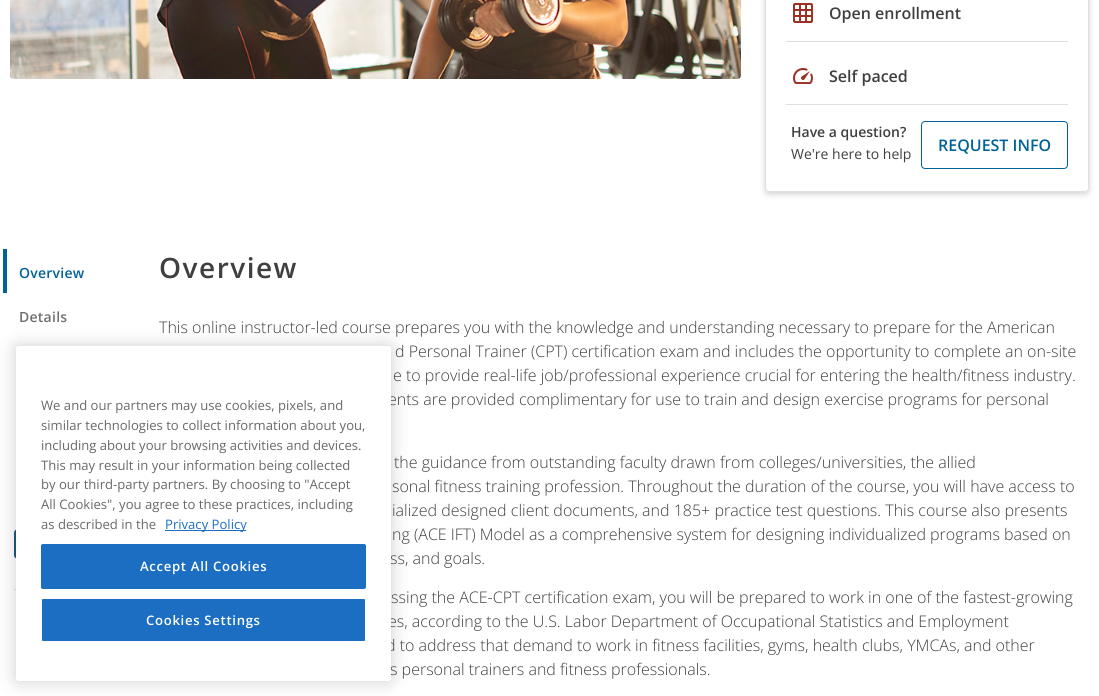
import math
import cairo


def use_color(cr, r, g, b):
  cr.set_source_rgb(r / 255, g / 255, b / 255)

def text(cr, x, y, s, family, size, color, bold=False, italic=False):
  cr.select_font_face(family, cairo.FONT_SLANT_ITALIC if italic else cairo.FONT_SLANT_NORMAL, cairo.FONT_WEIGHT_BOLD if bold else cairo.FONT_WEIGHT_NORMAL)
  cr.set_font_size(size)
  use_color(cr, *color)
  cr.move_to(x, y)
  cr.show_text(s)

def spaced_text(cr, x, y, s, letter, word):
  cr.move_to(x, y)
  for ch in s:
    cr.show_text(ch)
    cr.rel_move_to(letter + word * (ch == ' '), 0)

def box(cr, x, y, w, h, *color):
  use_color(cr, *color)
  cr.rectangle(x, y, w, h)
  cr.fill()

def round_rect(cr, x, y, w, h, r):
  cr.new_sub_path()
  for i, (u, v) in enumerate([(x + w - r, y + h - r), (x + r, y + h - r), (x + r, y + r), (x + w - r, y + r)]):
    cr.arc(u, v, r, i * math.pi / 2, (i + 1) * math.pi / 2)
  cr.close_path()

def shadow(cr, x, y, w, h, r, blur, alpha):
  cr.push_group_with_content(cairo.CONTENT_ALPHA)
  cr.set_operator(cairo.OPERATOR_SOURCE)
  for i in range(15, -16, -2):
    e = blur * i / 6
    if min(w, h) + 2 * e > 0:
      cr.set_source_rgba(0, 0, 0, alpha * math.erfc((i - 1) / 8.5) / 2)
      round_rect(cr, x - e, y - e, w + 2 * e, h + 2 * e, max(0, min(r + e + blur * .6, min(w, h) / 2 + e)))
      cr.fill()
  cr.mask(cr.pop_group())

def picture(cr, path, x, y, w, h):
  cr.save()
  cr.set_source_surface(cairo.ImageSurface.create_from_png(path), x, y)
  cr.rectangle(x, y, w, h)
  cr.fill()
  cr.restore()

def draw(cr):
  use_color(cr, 255, 255, 255)
  cr.paint()
  picture(cr, "img_01.png", 10, 0, 731, 79)
  cr.save()
  cr.set_fill_rule(cairo.FILL_RULE_EVEN_ODD)
  cr.new_path()
  cr.move_to(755, 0)
  cr.line_to(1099, 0)
  cr.line_to(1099, 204)
  cr.line_to(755, 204)
  cr.close_path()
  cr.move_to(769, -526)
  cr.line_to(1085, -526)
  cr.curve_to(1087, -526, 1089, -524, 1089, -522)
  cr.line_to(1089, 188)
  cr.curve_to(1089, 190, 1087, 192, 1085, 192)
  cr.line_to(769, 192)
  cr.curve_to(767, 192, 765, 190, 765, 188)
  cr.line_to(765, -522)
  cr.curve_to(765, -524, 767, -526, 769, -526)
  cr.close_path()
  cr.clip()
  use_color(cr, 0, 0, 0)
  shadow(cr, 765, -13, 324, 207, 4, 3, 0.18)
  cr.restore()
  round_rect(cr, 765.5, -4.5, 323, 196, 3.5)
  use_color(cr, 223, 223, 223)
  cr.set_line_width(1)
  cr.stroke()
  box(cr, 786, 41, 282, 1, 223, 223, 223)
  picture(cr, "img_02.png", 793, 3, 20, 20)
  box(cr, 786, 104, 282, 1, 223, 223, 223)
  picture(cr, "img_03.png", 793, 68, 20, 16)
  round_rect(cr, 921.5, 121.5, 146, 47, 3.5)
  use_color(cr, 0, 98, 152)
  cr.stroke()
  box(cr, 3, 249, 4, 44, 0, 98, 152)
  use_color(cr, 26, 93, 127)
  round_rect(cr, 14, 529, 99, 30, 4)
  cr.fill()
  box(cr, 14, 589, 2, 1, 223, 223, 223)
  use_color(cr, 0, 0, 0)
  shadow(cr, 16, 346, 375, 335, 2.5, 9, 0.2)
  text(cr, 829, 19, "Open enrollment", "Open Sans SemiBold", 16, (63, 63, 63))
  text(cr, 829, 82, "Self paced", "Open Sans SemiBold", 16, (63, 63, 63))
  text(cr, 791, 137, "Have a question?", "Open Sans SemiBold", 14, (63, 63, 63))
  text(cr, 791, 159, "We're here to help", "Open Sans", 14, (63, 63, 63))
  text(cr, 938, 151, "REQUEST INFO", "Open Sans SemiBold", 16, (0, 98, 152))
  cr.set_font_size(14)
  spaced_text(cr, 19, 278, "Overview", 0.25, 0)
  use_color(cr, 112, 112, 112)
  spaced_text(cr, 19, 322, "Details", 0.25, 0)
  cr.set_font_size(28)
  use_color(cr, 63, 63, 63)
  spaced_text(cr, 159, 278, "Overview", 1.5, 0)
  text(cr, 159, 333, "This online instructor-led course prepares you with the knowledge and understanding necessary to prepare for the American", "Open Sans Light", 16, (63, 63, 63))
  text(cr, 395, 357, "d Personal Trainer (CPT) certification exam and includes the opportunity to complete an on-site", "Open Sans Light", 16, (63, 63, 63))
  text(cr, 393, 381, "e to provide real-life job/professional experience crucial for entering the health/fitness industry.", "Open Sans Light", 16, (63, 63, 63))
  text(cr, 388, 405, "ents are provided complimentary for use to train and design exercise programs for personal", "Open Sans Light", 16, (63, 63, 63))
  text(cr, 394, 468, "the guidance from outstanding faculty drawn from colleges/universities, the allied", "Open Sans Light", 16, (63, 63, 63))
  text(cr, 392, 492, "sonal fitness training profession. Throughout the duration of the course, you will have access to", "Open Sans Light", 16, (63, 63, 63))
  text(cr, 392, 516, "ialized designed client documents, and 185+ practice test questions. This course also presents", "Open Sans Light", 16, (63, 63, 63))
  text(cr, 392, 540, "ng (ACE IFT) Model as a comprehensive system for designing individualized programs based on", "Open Sans Light", 16, (63, 63, 63))
  text(cr, 390, 564, "ss, and goals.", "Open Sans Light", 16, (63, 63, 63))
  text(cr, 391, 603, "ssing the ACE-CPT certification exam, you will be prepared to work in one of the fastest-growing", "Open Sans Light", 16, (63, 63, 63))
  text(cr, 388, 627, "es, according to the U.S. Labor Department of Occupational Statistics and Employment", "Open Sans Light", 16, (63, 63, 63))
  text(cr, 386, 651, "d to address that demand to work in fitness facilities, gyms, health clubs, YMCAs, and other", "Open Sans Light", 16, (63, 63, 63))
  text(cr, 390, 675, "s personal trainers and fitness professionals.", "Open Sans Light", 16, (63, 63, 63))
  use_color(cr, 255, 255, 255)
  round_rect(cr, 16, 346, 375, 335, 2.5)
  cr.fill()
  text(cr, 41, 410, "We and our partners may use cookies, pixels, and", "Open Sans", 13.1, (105, 105, 105))
  text(cr, 41, 430, "similar technologies to collect information about you,", "Open Sans", 13.1, (105, 105, 105))
  text(cr, 41, 450, "including about your browsing activities and devices.", "Open Sans", 13.1, (105, 105, 105))
  text(cr, 41, 470, "This may result in your information being collected", "Open Sans", 13.1, (105, 105, 105))
  text(cr, 41, 489, "by our third-party partners. By choosing to \"Accept", "Open Sans", 13.1, (105, 105, 105))
  text(cr, 41, 509, "All Cookies\", you agree to these practices, including", "Open Sans", 13.1, (105, 105, 105))
  text(cr, 41, 529, "as described in the", "Open Sans", 13.1, (105, 105, 105))
  box(cr, 165, 530, 81, 1, 27, 110, 194)
  text(cr, 165, 529, "Privacy Policy", "Open Sans", 13.1, (27, 110, 194))
  round_rect(cr, 41.5, 544.5, 324, 44, 1.5)
  cr.fill_preserve()
  cr.stroke()
  cr.select_font_face("Open Sans SemiBold")
  use_color(cr, 255, 255, 255)
  spaced_text(cr, 140, 571, "Accept All Cookies", 0.7, 0)
  use_color(cr, 27, 110, 194)
  round_rect(cr, 41.5, 598.5, 324, 43, 1.5)
  cr.fill_preserve()
  use_color(cr, 255, 255, 255)
  cr.stroke()
  spaced_text(cr, 146, 625, "Cookies Settings", 0.7, 0)


surface = cairo.ImageSurface(cairo.FORMAT_RGB24, 1099, 696)
cr = cairo.Context(surface)
options = cairo.FontOptions()
options.set_hint_metrics(cairo.HINT_METRICS_OFF)
options.set_hint_style(cairo.HINT_STYLE_NONE)
cr.set_font_options(options)
cr.set_miter_limit(4)
draw(cr)
surface.write_to_png("out.png")
